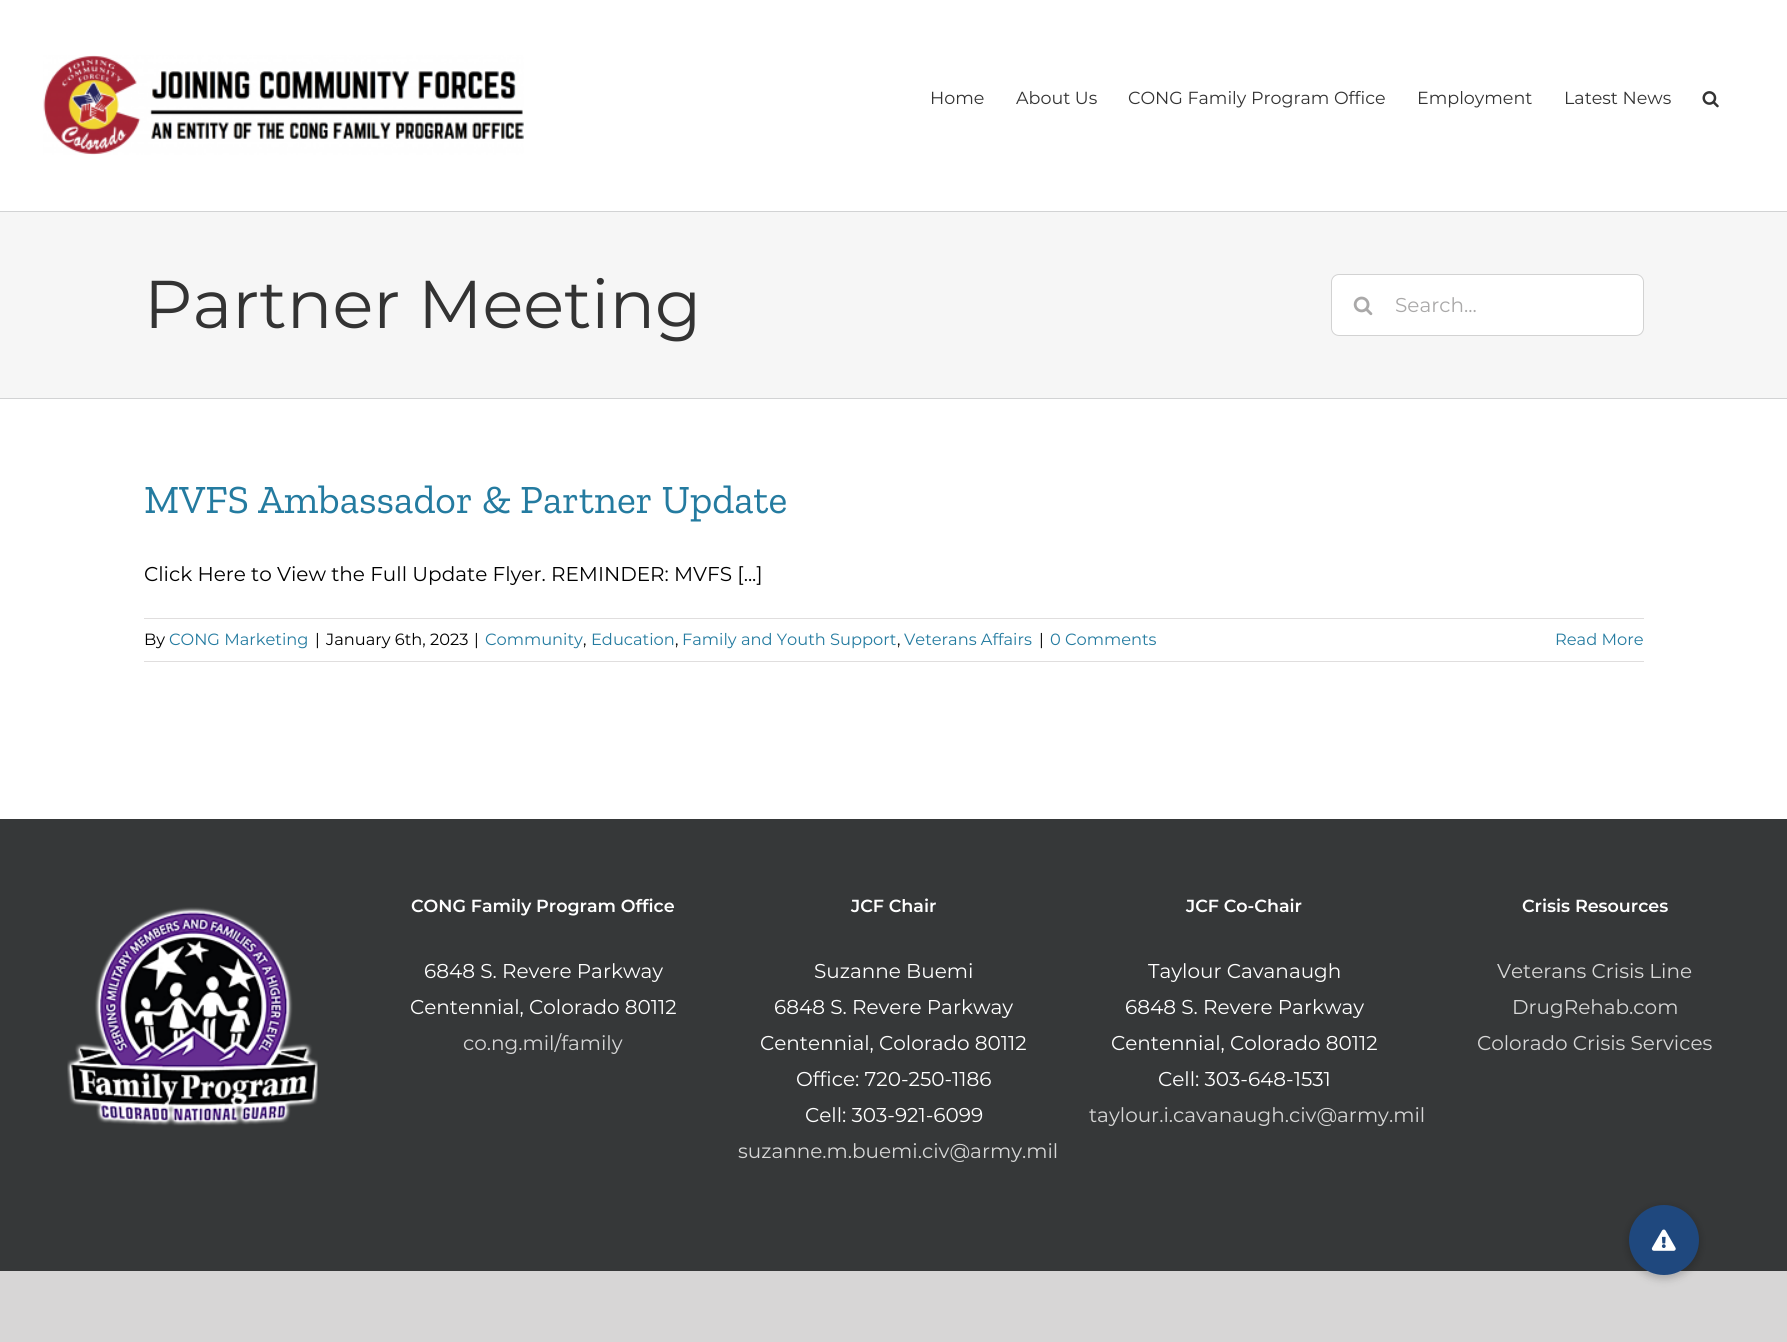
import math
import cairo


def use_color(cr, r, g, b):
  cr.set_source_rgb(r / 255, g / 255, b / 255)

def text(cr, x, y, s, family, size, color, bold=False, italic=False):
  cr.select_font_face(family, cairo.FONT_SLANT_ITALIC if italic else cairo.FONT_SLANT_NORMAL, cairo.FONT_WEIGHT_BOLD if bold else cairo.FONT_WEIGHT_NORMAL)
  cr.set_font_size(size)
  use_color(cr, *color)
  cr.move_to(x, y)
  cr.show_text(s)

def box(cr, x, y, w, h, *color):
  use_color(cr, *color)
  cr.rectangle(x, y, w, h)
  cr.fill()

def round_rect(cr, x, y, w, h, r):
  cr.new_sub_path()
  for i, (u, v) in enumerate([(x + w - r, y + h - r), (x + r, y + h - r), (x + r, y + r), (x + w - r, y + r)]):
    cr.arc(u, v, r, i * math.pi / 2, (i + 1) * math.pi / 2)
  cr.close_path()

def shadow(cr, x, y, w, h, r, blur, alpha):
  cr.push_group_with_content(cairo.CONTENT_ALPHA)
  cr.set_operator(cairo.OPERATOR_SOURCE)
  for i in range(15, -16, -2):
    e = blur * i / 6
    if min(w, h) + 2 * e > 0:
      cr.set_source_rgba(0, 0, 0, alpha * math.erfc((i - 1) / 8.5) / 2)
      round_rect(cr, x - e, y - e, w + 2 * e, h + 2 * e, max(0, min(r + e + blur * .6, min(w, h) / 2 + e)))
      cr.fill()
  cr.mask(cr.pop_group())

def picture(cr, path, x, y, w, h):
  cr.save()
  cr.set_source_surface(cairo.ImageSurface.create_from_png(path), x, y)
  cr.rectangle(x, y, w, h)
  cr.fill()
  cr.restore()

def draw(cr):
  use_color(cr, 215, 214, 214)
  cr.paint()
  box(cr, 0, 0, 1787, 819, 255, 255, 255)
  picture(cr, "img_01.png", 43, 55, 481, 100)
  picture(cr, "img_02.png", 1702, 91, 17, 17)
  box(cr, 0, 212, 1787, 186, 246, 246, 246)
  box(cr, 0, 211, 1787, 1, 210, 211, 212)
  box(cr, 0, 398, 1787, 1, 210, 211, 212)
  use_color(cr, 255, 255, 255)
  round_rect(cr, 1331.5, 274.5, 312, 61, 7.5)
  cr.fill_preserve()
  use_color(cr, 210, 210, 210)
  cr.set_line_width(1)
  cr.stroke()
  picture(cr, "img_03.png", 1353, 296, 20, 20)
  box(cr, 144, 618, 1500, 1, 224, 222, 222)
  box(cr, 144, 661, 1500, 1, 224, 222, 222)
  box(cr, 0, 819, 1787, 452, 54, 56, 57)
  picture(cr, "img_04.png", 67, 907, 251, 219)
  use_color(cr, 0, 0, 0)
  shadow(cr, 1628, 1206, 72, 73, 36, 4, 0.2)
  use_color(cr, 31, 72, 126)
  cr.arc(1664, 1240, 35, 0, 2 * math.pi)
  cr.fill()
  picture(cr, "img_05.png", 1651, 1229, 25, 22)
  text(cr, 930, 104, "Home", "Montserrat", 17.5, (51, 51, 51))
  text(cr, 1016, 104, "About Us", "Montserrat", 17.5, (51, 51, 51))
  text(cr, 1128, 104, "CONG Family Program Office", "Montserrat", 17.5, (51, 51, 51))
  text(cr, 1417, 104, "Employment", "Montserrat", 17.5, (51, 51, 51))
  text(cr, 1564, 104, "Latest News", "Montserrat", 17.5, (51, 51, 51))
  text(cr, 144, 328, "Partner Meeting", "Montserrat", 67.5, (51, 51, 51))
  text(cr, 1395, 312, "Search...", "Montserrat", 20, (170, 169, 169))
  text(cr, 144, 513, "MVFS Ambassador & Partner Update", "Zilla Slab", 40, (36, 123, 160))
  text(cr, 144, 581, "Click Here to View the Full Update Flyer. REMINDER: MVFS [...]", "Montserrat", 20, (0, 0, 0))
  text(cr, 144, 645, "By", "Montserrat", 16.25, (0, 0, 0))
  text(cr, 169, 645, "CONG Marketing", "Montserrat", 16.25, (36, 123, 160))
  text(cr, 315, 645, "|", "Montserrat", 16.25, (0, 0, 0))
  text(cr, 326, 645, "January 6th, 2023", "Montserrat", 16.25, (0, 0, 0))
  text(cr, 474, 645, "|", "Montserrat", 16.25, (0, 0, 0))
  text(cr, 485, 645, "Community", "Montserrat", 16.25, (36, 123, 160))
  text(cr, 583, 645, ",", "Montserrat", 16.25, (0, 0, 0))
  text(cr, 591, 645, "Education", "Montserrat", 16.25, (36, 123, 160))
  text(cr, 675, 645, ",", "Montserrat", 16.25, (0, 0, 0))
  text(cr, 682, 645, "Family and Youth Support", "Montserrat", 16.25, (36, 123, 160))
  text(cr, 897, 645, ",", "Montserrat", 16.25, (0, 0, 0))
  text(cr, 904, 645, "Veterans Affairs", "Montserrat", 16.25, (36, 123, 160))
  text(cr, 1039, 645, "|", "Montserrat", 16.25, (0, 0, 0))
  text(cr, 1050, 645, "0 Comments", "Montserrat", 16.25, (36, 123, 160))
  text(cr, 1555, 645, "Read More", "Montserrat", 16.25, (36, 123, 160))
  text(cr, 411, 912, "CONG Family Program Office", "Montserrat SemiBold", 17.5, (255, 255, 255))
  text(cr, 424, 978, "6848 S. Revere Parkway", "Montserrat", 20, (255, 255, 255))
  text(cr, 410, 1014, "Centennial, Colorado 80112", "Montserrat", 20, (255, 255, 255))
  text(cr, 463, 1050, "co.ng.mil/family", "Montserrat", 20, (215, 215, 215))
  text(cr, 851, 912, "JCF Chair", "Montserrat SemiBold", 17.5, (255, 255, 255))
  text(cr, 814, 978, "Suzanne Buemi", "Montserrat", 20, (255, 255, 255))
  text(cr, 774, 1014, "6848 S. Revere Parkway", "Montserrat", 20, (255, 255, 255))
  text(cr, 760, 1050, "Centennial, Colorado 80112", "Montserrat", 20, (255, 255, 255))
  text(cr, 796, 1086, "Office: 720-250-1186", "Montserrat", 20, (255, 255, 255))
  text(cr, 805, 1122, "Cell: 303-921-6099", "Montserrat", 20, (255, 255, 255))
  text(cr, 738, 1158, "suzanne.m.buemi.civ@army.mil", "Montserrat", 20, (215, 215, 215))
  text(cr, 1186, 912, "JCF Co-Chair", "Montserrat SemiBold", 17.5, (255, 255, 255))
  text(cr, 1148, 978, "Taylour Cavanaugh", "Montserrat", 20, (255, 255, 255))
  text(cr, 1125, 1014, "6848 S. Revere Parkway", "Montserrat", 20, (255, 255, 255))
  text(cr, 1111, 1050, "Centennial, Colorado 80112", "Montserrat", 20, (255, 255, 255))
  text(cr, 1158, 1086, "Cell: 303-648-1531", "Montserrat", 20, (255, 255, 255))
  text(cr, 1089, 1122, "taylour.i.cavanaugh.civ@army.mil", "Montserrat", 20, (215, 215, 215))
  text(cr, 1522, 912, "Crisis Resources", "Montserrat SemiBold", 17.5, (255, 255, 255))
  text(cr, 1497, 978, "Veterans Crisis Line", "Montserrat", 20, (215, 215, 215))
  text(cr, 1512, 1014, "DrugRehab.com", "Montserrat", 20, (215, 215, 215))
  text(cr, 1477, 1050, "Colorado Crisis Services", "Montserrat", 20, (215, 215, 215))


surface = cairo.ImageSurface(cairo.FORMAT_RGB24, 1787, 1342)
cr = cairo.Context(surface)
options = cairo.FontOptions()
options.set_hint_metrics(cairo.HINT_METRICS_OFF)
options.set_hint_style(cairo.HINT_STYLE_NONE)
cr.set_font_options(options)
cr.set_miter_limit(4)
draw(cr)
surface.write_to_png("out.png")
